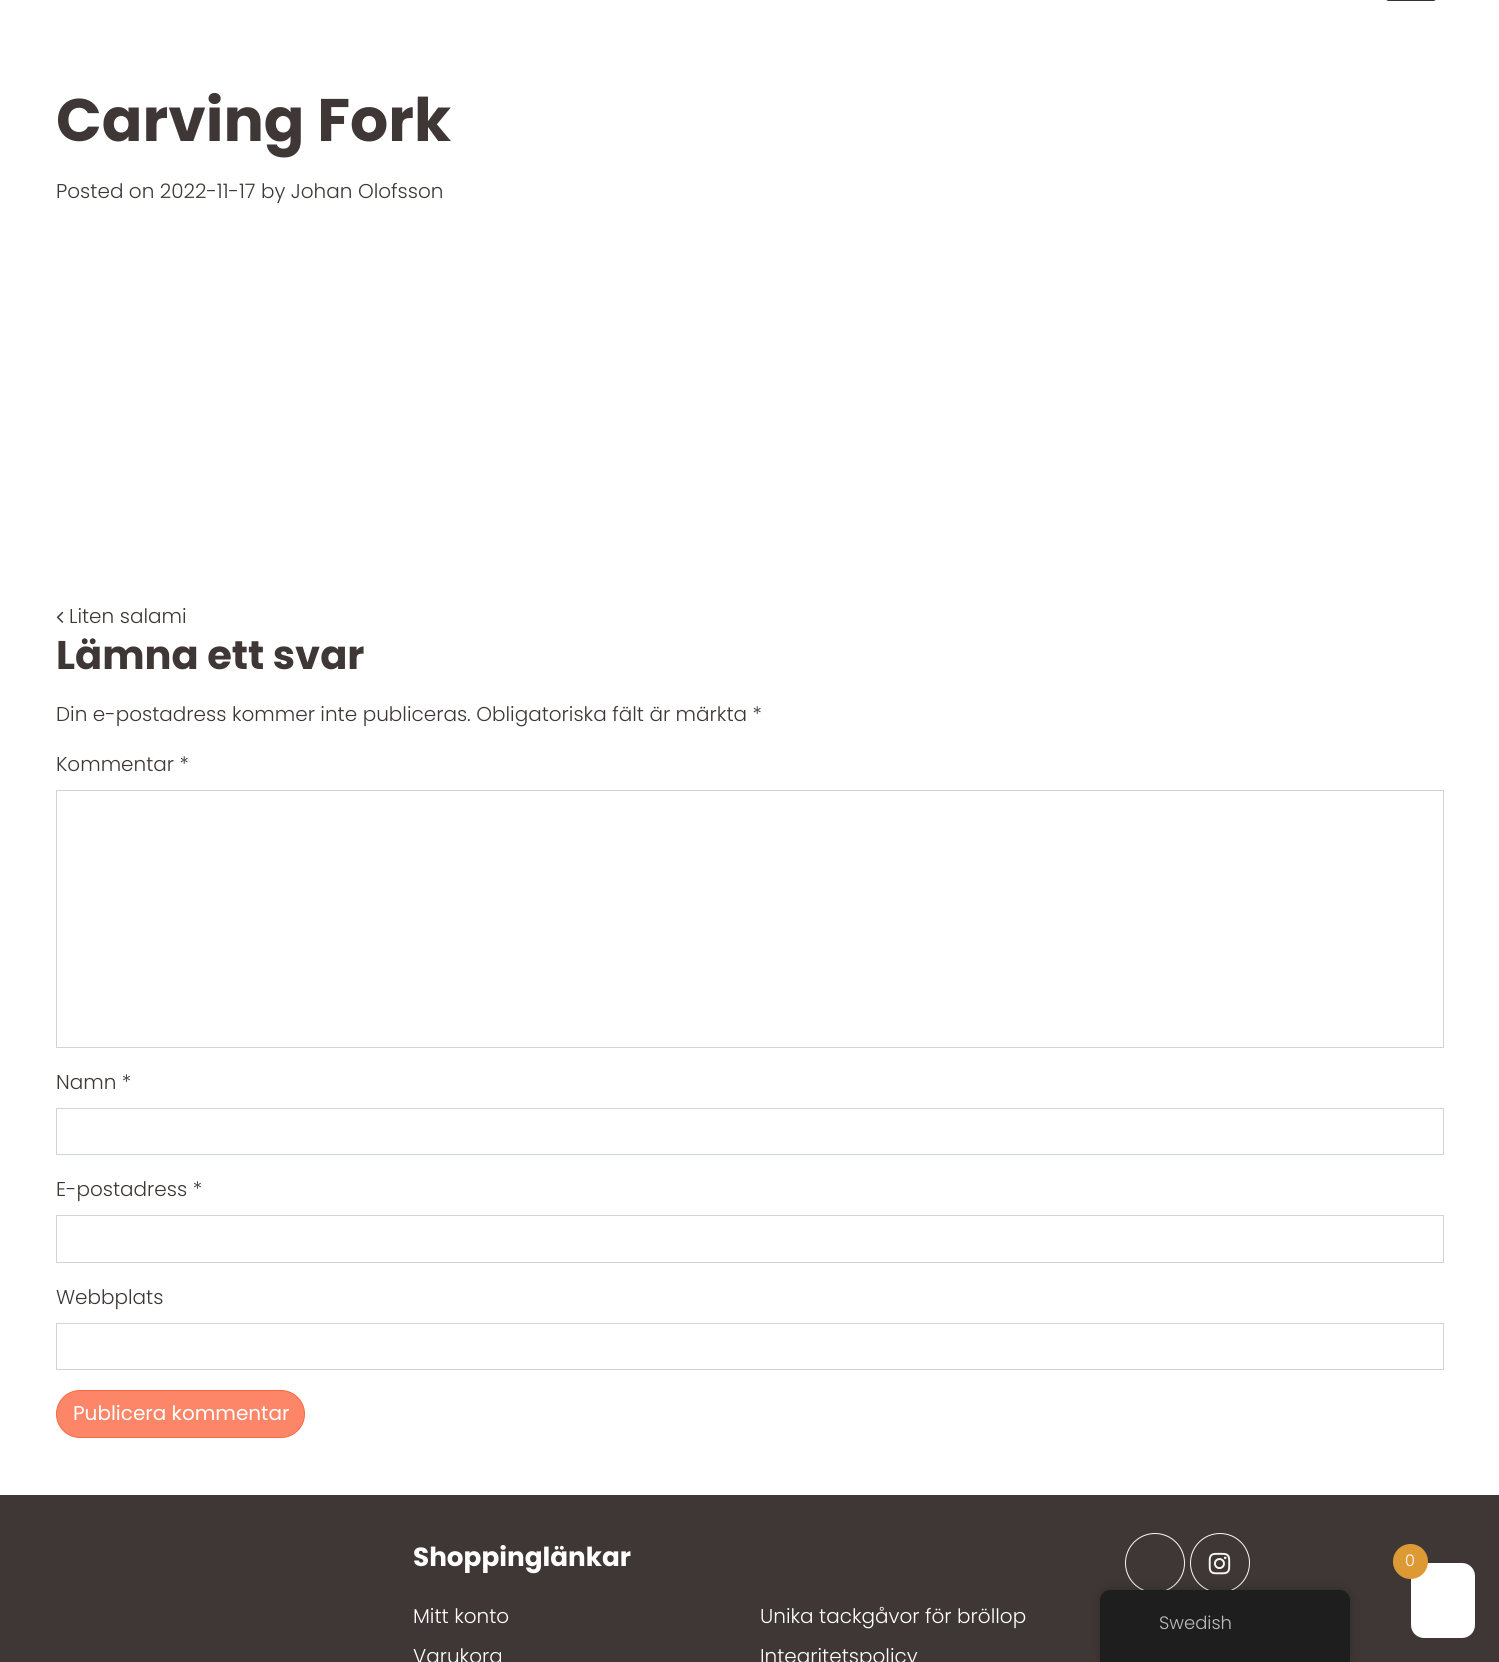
import math
import cairo


def use_color(cr, r, g, b):
  cr.set_source_rgb(r / 255, g / 255, b / 255)

def text(cr, x, y, s, family, size, color, bold=False, italic=False):
  cr.select_font_face(family, cairo.FONT_SLANT_ITALIC if italic else cairo.FONT_SLANT_NORMAL, cairo.FONT_WEIGHT_BOLD if bold else cairo.FONT_WEIGHT_NORMAL)
  cr.set_font_size(size)
  use_color(cr, *color)
  cr.move_to(x, y)
  cr.show_text(s)

def box(cr, x, y, w, h, *color):
  use_color(cr, *color)
  cr.rectangle(x, y, w, h)
  cr.fill()

def round_rect(cr, x, y, w, h, r):
  cr.new_sub_path()
  for i, (u, v) in enumerate([(x + w - r, y + h - r), (x + r, y + h - r), (x + r, y + r), (x + w - r, y + r)]):
    cr.arc(u, v, r, i * math.pi / 2, (i + 1) * math.pi / 2)
  cr.close_path()

def shadow(cr, x, y, w, h, r, blur, alpha):
  cr.push_group_with_content(cairo.CONTENT_ALPHA)
  cr.set_operator(cairo.OPERATOR_SOURCE)
  for i in range(15, -16, -2):
    e = blur * i / 6
    if min(w, h) + 2 * e > 0:
      cr.set_source_rgba(0, 0, 0, alpha * math.erfc((i - 1) / 8.5) / 2)
      round_rect(cr, x - e, y - e, w + 2 * e, h + 2 * e, max(0, min(r + e + blur * .6, min(w, h) / 2 + e)))
      cr.fill()
  cr.mask(cr.pop_group())

def picture(cr, path, x, y, w, h):
  cr.save()
  cr.set_source_surface(cairo.ImageSurface.create_from_png(path), x, y)
  cr.rectangle(x, y, w, h)
  cr.fill()
  cr.restore()

def draw(cr):
  use_color(cr, 255, 255, 255)
  cr.paint()
  use_color(cr, 51, 51, 51)
  round_rect(cr, 1386, -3, 50, 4, 2.5)
  cr.fill()
  picture(cr, "img_01.png", 56, 611, 8, 12)
  cr.rectangle(56.5, 790.5, 1387, 257)
  use_color(cr, 206, 212, 218)
  cr.set_line_width(1)
  cr.stroke()
  cr.rectangle(56.5, 1108.5, 1387, 46)
  cr.stroke()
  cr.rectangle(56.5, 1215.5, 1387, 47)
  cr.stroke()
  cr.rectangle(56.5, 1323.5, 1387, 46)
  cr.stroke()
  use_color(cr, 253, 134, 104)
  round_rect(cr, 56.5, 1390.5, 248, 47, 23.5)
  cr.fill_preserve()
  use_color(cr, 253, 104, 66)
  cr.stroke()
  box(cr, 0, 1495, 1499, 167, 62, 55, 53)
  cr.arc(1155, 1563, 29.5, 0, 2 * math.pi)
  use_color(cr, 249, 247, 246)
  cr.stroke()
  cr.arc(1220, 1563, 29.5, 0, 2 * math.pi)
  cr.stroke()
  picture(cr, "img_02.png", 1208, 1552, 23, 23)
  use_color(cr, 255, 255, 255)
  round_rect(cr, 1411, 1563, 64, 75, 13)
  cr.fill()
  use_color(cr, 221, 153, 51)
  cr.arc(1410.5, 1561.5, 17.5, 0, 2 * math.pi)
  cr.fill()
  use_color(cr, 0, 0, 0)
  shadow(cr, 1100, 1590, 250, 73, 10, 5, 0.25)
  use_color(cr, 30, 30, 30)
  cr.new_path()
  cr.move_to(1110, 1590)
  cr.line_to(1340, 1590)
  cr.curve_to(1345.5, 1590, 1350, 1594.5, 1350, 1600)
  cr.line_to(1350, 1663)
  cr.line_to(1100, 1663)
  cr.line_to(1100, 1600)
  cr.curve_to(1100, 1594.5, 1104.5, 1590, 1110, 1590)
  cr.close_path()
  cr.fill()
  text(cr, 56, 141, "Carving Fork", "Poppins", 60, (62, 55, 53), bold=True)
  text(cr, 56, 198, "Posted on 2022-11-17 by Johan Olofsson", "Poppins Light", 20, (62, 55, 53))
  text(cr, 69, 623, "Liten salami", "Poppins Light", 20, (62, 55, 53))
  text(cr, 56, 669, "Lämna ett svar", "Poppins", 40, (62, 55, 53), bold=True)
  text(cr, 56, 721, "Din e-postadress kommer inte publiceras. Obligatoriska fält är märkta *", "Poppins Light", 20, (62, 55, 53))
  text(cr, 56, 771, "Kommentar *", "Poppins Light", 20, (62, 55, 53))
  text(cr, 56, 1089, "Namn *", "Poppins Light", 20, (62, 55, 53))
  text(cr, 56, 1196, "E-postadress *", "Poppins Light", 20, (62, 55, 53))
  text(cr, 56, 1304, "Webbplats", "Poppins Light", 20, (62, 55, 53))
  text(cr, 73, 1420, "Publicera kommentar", "Poppins", 20, (255, 255, 255))
  text(cr, 413, 1566, "Shoppinglänkar", "Poppins", 26.25, (255, 255, 255), bold=True)
  text(cr, 413, 1623, "Mitt konto", "Poppins Light", 20, (255, 255, 255))
  text(cr, 760, 1623, "Unika tackgåvor för bröllop", "Poppins Light", 20, (255, 255, 255))
  text(cr, 413, 1663, "Varukorg", "Poppins Light", 20, (255, 255, 255))
  text(cr, 760, 1663, "Integritetspolicy", "Poppins Light", 20, (255, 255, 255))
  text(cr, 1405, 1566, "0", "Poppins Light", 16, (255, 255, 255))
  text(cr, 1159, 1629, "Swedish", "Poppins Light", 18, (189, 189, 189))


surface = cairo.ImageSurface(cairo.FORMAT_RGB24, 1499, 1662)
cr = cairo.Context(surface)
options = cairo.FontOptions()
options.set_hint_metrics(cairo.HINT_METRICS_OFF)
options.set_hint_style(cairo.HINT_STYLE_NONE)
cr.set_font_options(options)
cr.set_miter_limit(4)
draw(cr)
surface.write_to_png("out.png")
